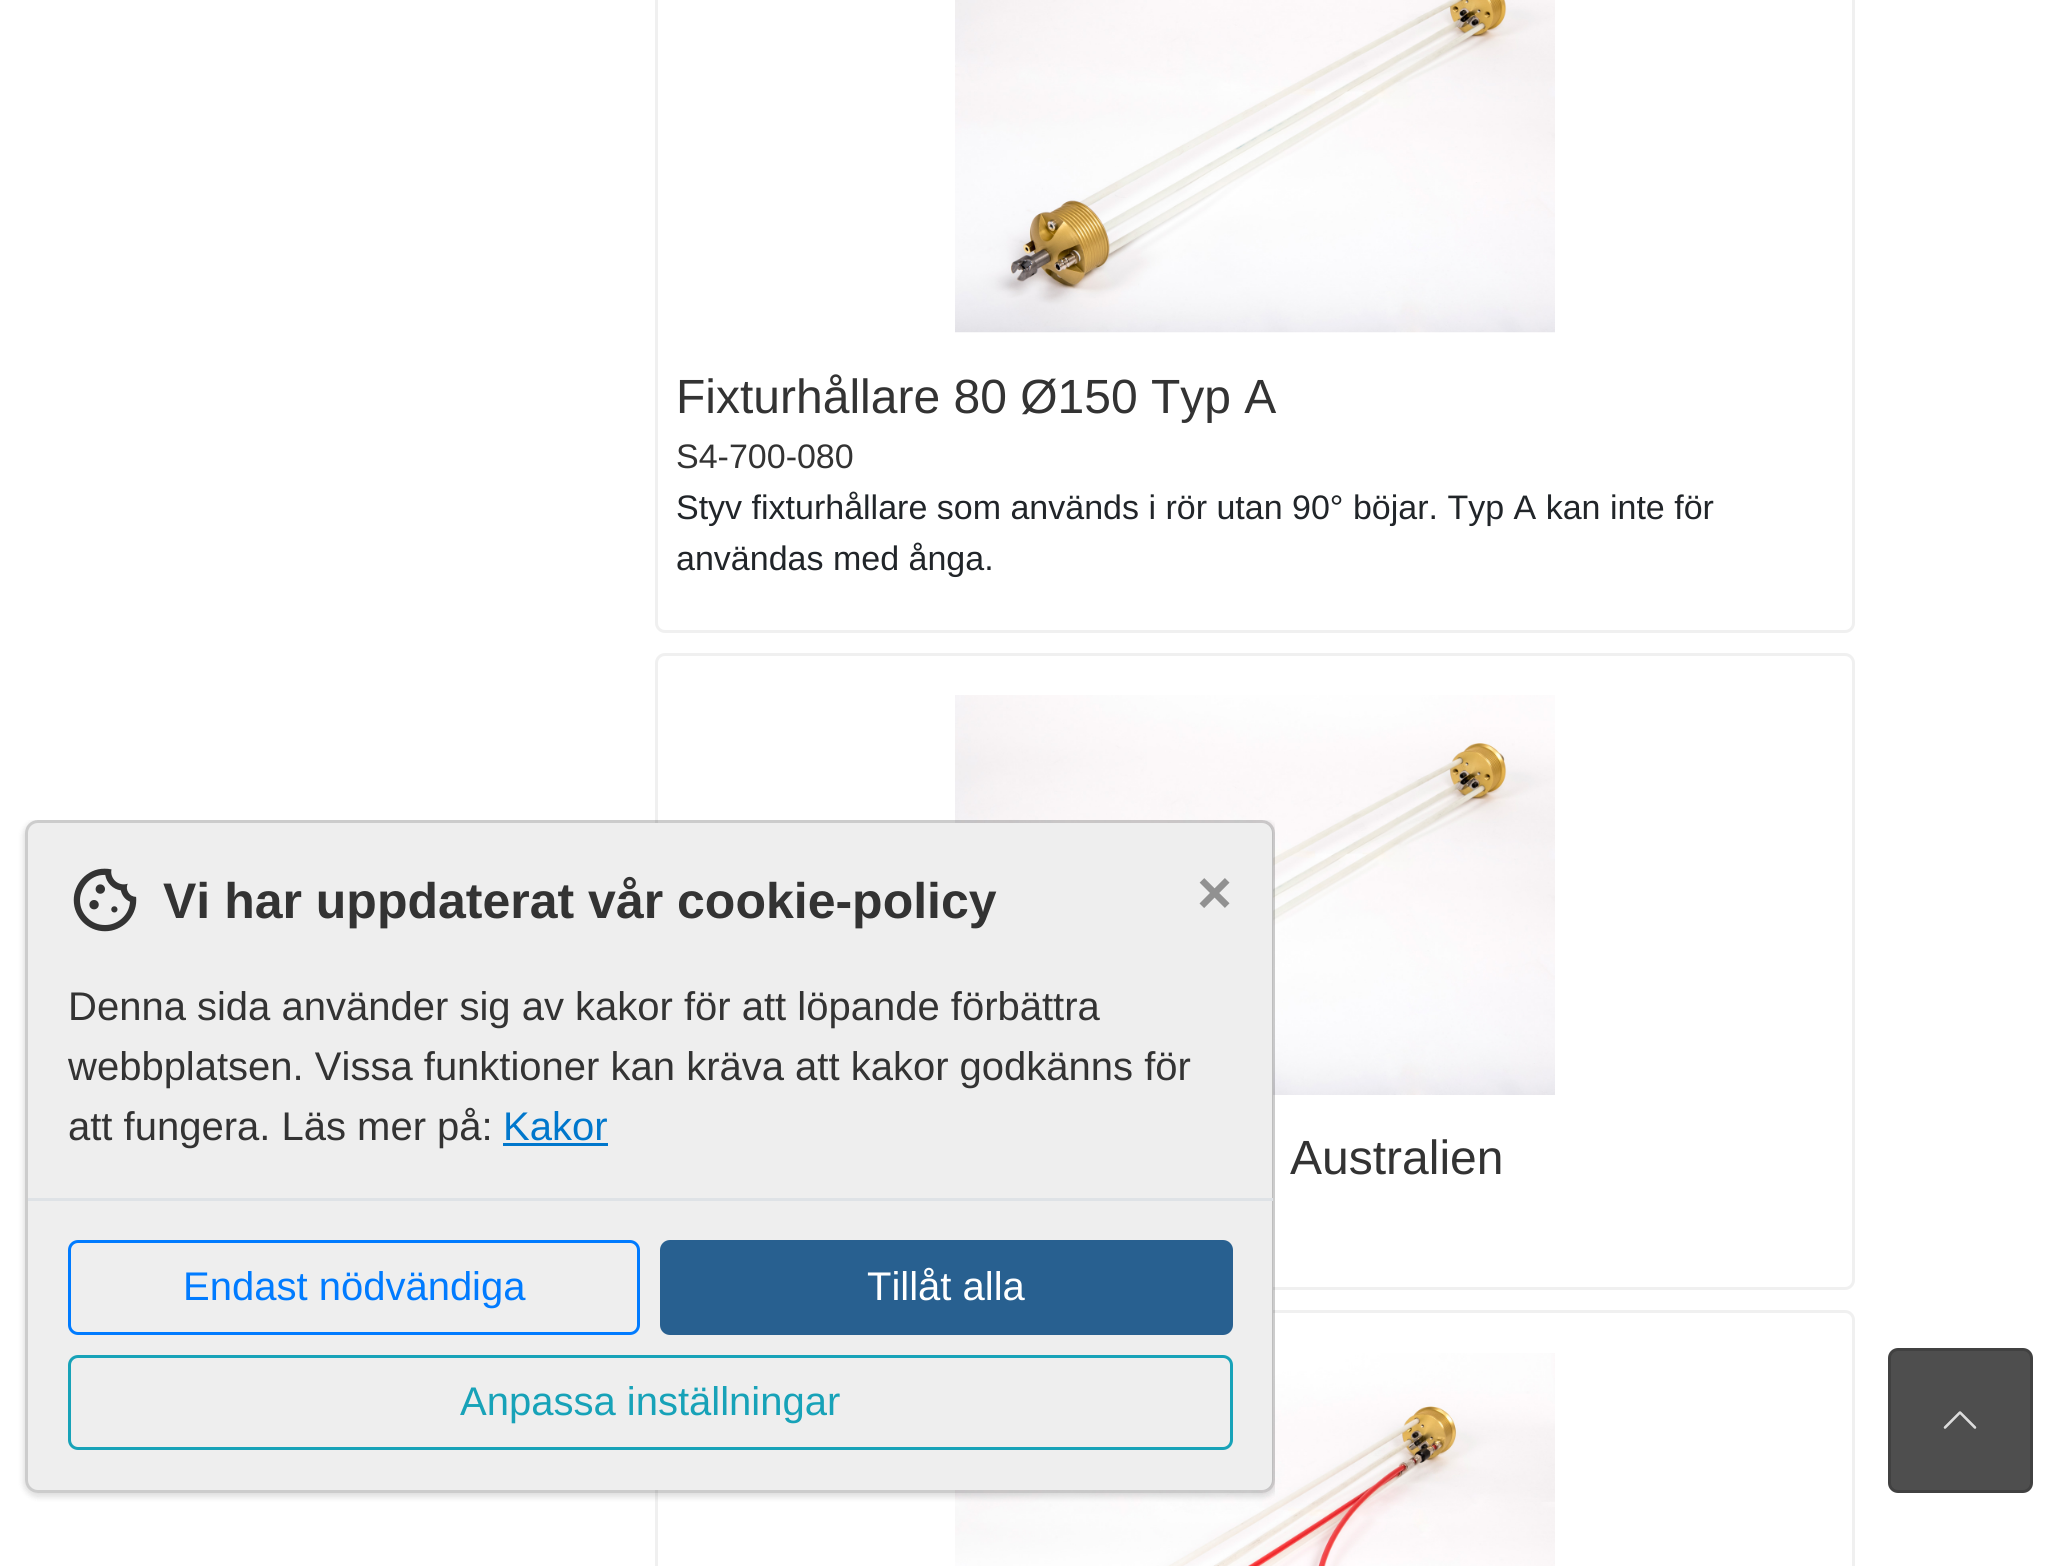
import math
import cairo


def use_color(cr, r, g, b):
  cr.set_source_rgb(r / 255, g / 255, b / 255)

def text(cr, x, y, s, family, size, color, bold=False, italic=False):
  cr.select_font_face(family, cairo.FONT_SLANT_ITALIC if italic else cairo.FONT_SLANT_NORMAL, cairo.FONT_WEIGHT_BOLD if bold else cairo.FONT_WEIGHT_NORMAL)
  cr.set_font_size(size)
  use_color(cr, *color)
  cr.move_to(x, y)
  cr.show_text(s)

def box(cr, x, y, w, h, *color):
  use_color(cr, *color)
  cr.rectangle(x, y, w, h)
  cr.fill()

def round_rect(cr, x, y, w, h, r):
  cr.new_sub_path()
  for i, (u, v) in enumerate([(x + w - r, y + h - r), (x + r, y + h - r), (x + r, y + r), (x + w - r, y + r)]):
    cr.arc(u, v, r, i * math.pi / 2, (i + 1) * math.pi / 2)
  cr.close_path()

def shadow(cr, x, y, w, h, r, blur, alpha):
  cr.push_group_with_content(cairo.CONTENT_ALPHA)
  cr.set_operator(cairo.OPERATOR_SOURCE)
  for i in range(15, -16, -2):
    e = blur * i / 6
    if min(w, h) + 2 * e > 0:
      cr.set_source_rgba(0, 0, 0, alpha * math.erfc((i - 1) / 8.5) / 2)
      round_rect(cr, x - e, y - e, w + 2 * e, h + 2 * e, max(0, min(r + e + blur * .6, min(w, h) / 2 + e)))
      cr.fill()
  cr.mask(cr.pop_group())

def picture(cr, path, x, y, w, h):
  cr.save()
  cr.set_source_surface(cairo.ImageSurface.create_from_png(path), x, y)
  cr.rectangle(x, y, w, h)
  cr.fill()
  cr.restore()

def draw(cr):
  use_color(cr, 255, 255, 255)
  cr.paint()
  round_rect(cr, 656.5, -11.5, 1197, 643, 8.5)
  use_color(cr, 240, 240, 240)
  cr.set_line_width(3)
  cr.stroke()
  picture(cr, "img_01.png", 955, 0, 600, 333)
  round_rect(cr, 656.5, 654.5, 1197, 634, 8.5)
  cr.stroke()
  picture(cr, "img_02.png", 955, 695, 600, 400)
  round_rect(cr, 656.5, 1311.5, 1197, 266, 8.5)
  cr.stroke()
  picture(cr, "img_03.png", 955, 1353, 600, 213)
  cr.save()
  cr.rectangle(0, 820, 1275, 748)
  cr.clip()
  cr.set_fill_rule(cairo.FILL_RULE_EVEN_ODD)
  cr.new_path()
  cr.move_to(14, 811)
  cr.line_to(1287, 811)
  cr.line_to(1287, 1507)
  cr.line_to(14, 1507)
  cr.close_path()
  cr.move_to(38, 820)
  cr.line_to(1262, 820)
  cr.curve_to(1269, 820, 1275, 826, 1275, 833)
  cr.line_to(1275, 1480)
  cr.curve_to(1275, 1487, 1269, 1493, 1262, 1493)
  cr.line_to(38, 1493)
  cr.curve_to(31, 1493, 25, 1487, 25, 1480)
  cr.line_to(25, 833)
  cr.curve_to(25, 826, 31, 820, 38, 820)
  cr.close_path()
  cr.clip()
  use_color(cr, 0, 0, 0)
  shadow(cr, 23, 820, 1255, 678, 15, 2.5, 0.06)
  cr.restore()
  cr.save()
  cr.rectangle(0, 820, 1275, 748)
  cr.clip()
  cr.set_fill_rule(cairo.FILL_RULE_EVEN_ODD)
  cr.new_path()
  cr.move_to(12, 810)
  cr.line_to(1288, 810)
  cr.line_to(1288, 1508)
  cr.line_to(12, 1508)
  cr.close_path()
  cr.move_to(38, 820)
  cr.line_to(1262, 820)
  cr.curve_to(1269, 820, 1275, 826, 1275, 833)
  cr.line_to(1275, 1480)
  cr.curve_to(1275, 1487, 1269, 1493, 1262, 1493)
  cr.line_to(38, 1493)
  cr.curve_to(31, 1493, 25, 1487, 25, 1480)
  cr.line_to(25, 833)
  cr.curve_to(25, 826, 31, 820, 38, 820)
  cr.close_path()
  cr.clip()
  use_color(cr, 0, 0, 0)
  shadow(cr, 25, 823, 1250, 672, 13, 4, 0.1)
  cr.restore()
  use_color(cr, 238, 238, 238)
  round_rect(cr, 28, 823, 1245, 667, 10)
  cr.fill()
  round_rect(cr, 26.5, 821.5, 1247, 670, 11.5)
  cr.set_source_rgba(0, 0, 0, 0.2)
  cr.stroke()
  picture(cr, "img_04.png", 73, 868, 64, 64)
  box(cr, 503, 1143, 105, 3, 0, 119, 204)
  box(cr, 28, 1198, 1245, 3, 222, 226, 230)
  round_rect(cr, 69.5, 1241.5, 569, 92, 8.5)
  use_color(cr, 0, 123, 255)
  cr.stroke()
  use_color(cr, 40, 96, 144)
  round_rect(cr, 661.5, 1241.5, 570, 92, 8.5)
  cr.fill_preserve()
  cr.stroke()
  round_rect(cr, 69.5, 1356.5, 1162, 92, 8.5)
  use_color(cr, 23, 162, 184)
  cr.stroke()
  use_color(cr, 78, 78, 78)
  round_rect(cr, 1889.5, 1349.5, 142, 142, 8.5)
  cr.fill_preserve()
  use_color(cr, 65, 65, 65)
  cr.stroke()
  picture(cr, "img_05.png", 1943, 1411, 34, 18)
  text(cr, 676, 413, "Fixturhållare 80 Ø150 Typ A", "Liberation Sans", 48, (51, 51, 51))
  text(cr, 676, 468, "S4-700-080", "Liberation Sans", 34, (51, 51, 51))
  text(cr, 676, 519, "Styv fixturhållare som används i rör utan 90° böjar. Typ A kan inte för", "Liberation Sans", 34, (33, 37, 41))
  text(cr, 676, 570, "användas med ånga.", "Liberation Sans", 34, (33, 37, 41))
  text(cr, 1290, 1174, "Australien", "Liberation Sans", 48, (51, 51, 51))
  text(cr, 163, 918, "Vi har uppdaterat vår cookie-policy", "Liberation Sans", 50, (51, 51, 51), bold=True)
  text(cr, 1197, 913, "×", "Liberation Sans", 60, (145, 145, 145), bold=True)
  text(cr, 68, 1020, "Denna sida använder sig av kakor för att löpande förbättra", "Liberation Sans", 40, (51, 51, 51))
  text(cr, 68, 1080, "webbplatsen. Vissa funktioner kan kräva att kakor godkänns för", "Liberation Sans", 40, (51, 51, 51))
  text(cr, 68, 1140, "att fungera. Läs mer på:", "Liberation Sans", 40, (51, 51, 51))
  text(cr, 503, 1140, "Kakor", "Liberation Sans", 40, (0, 119, 204))
  text(cr, 183, 1300, "Endast nödvändiga", "Liberation Sans", 40, (0, 123, 255))
  text(cr, 867, 1300, "Tillåt alla", "Liberation Sans", 40, (255, 255, 255))
  text(cr, 460, 1415, "Anpassa inställningar", "Liberation Sans", 40, (23, 162, 184))


surface = cairo.ImageSurface(cairo.FORMAT_RGB24, 2056, 1566)
cr = cairo.Context(surface)
options = cairo.FontOptions()
options.set_hint_metrics(cairo.HINT_METRICS_OFF)
options.set_hint_style(cairo.HINT_STYLE_NONE)
cr.set_font_options(options)
cr.set_miter_limit(4)
draw(cr)
surface.write_to_png("out.png")
